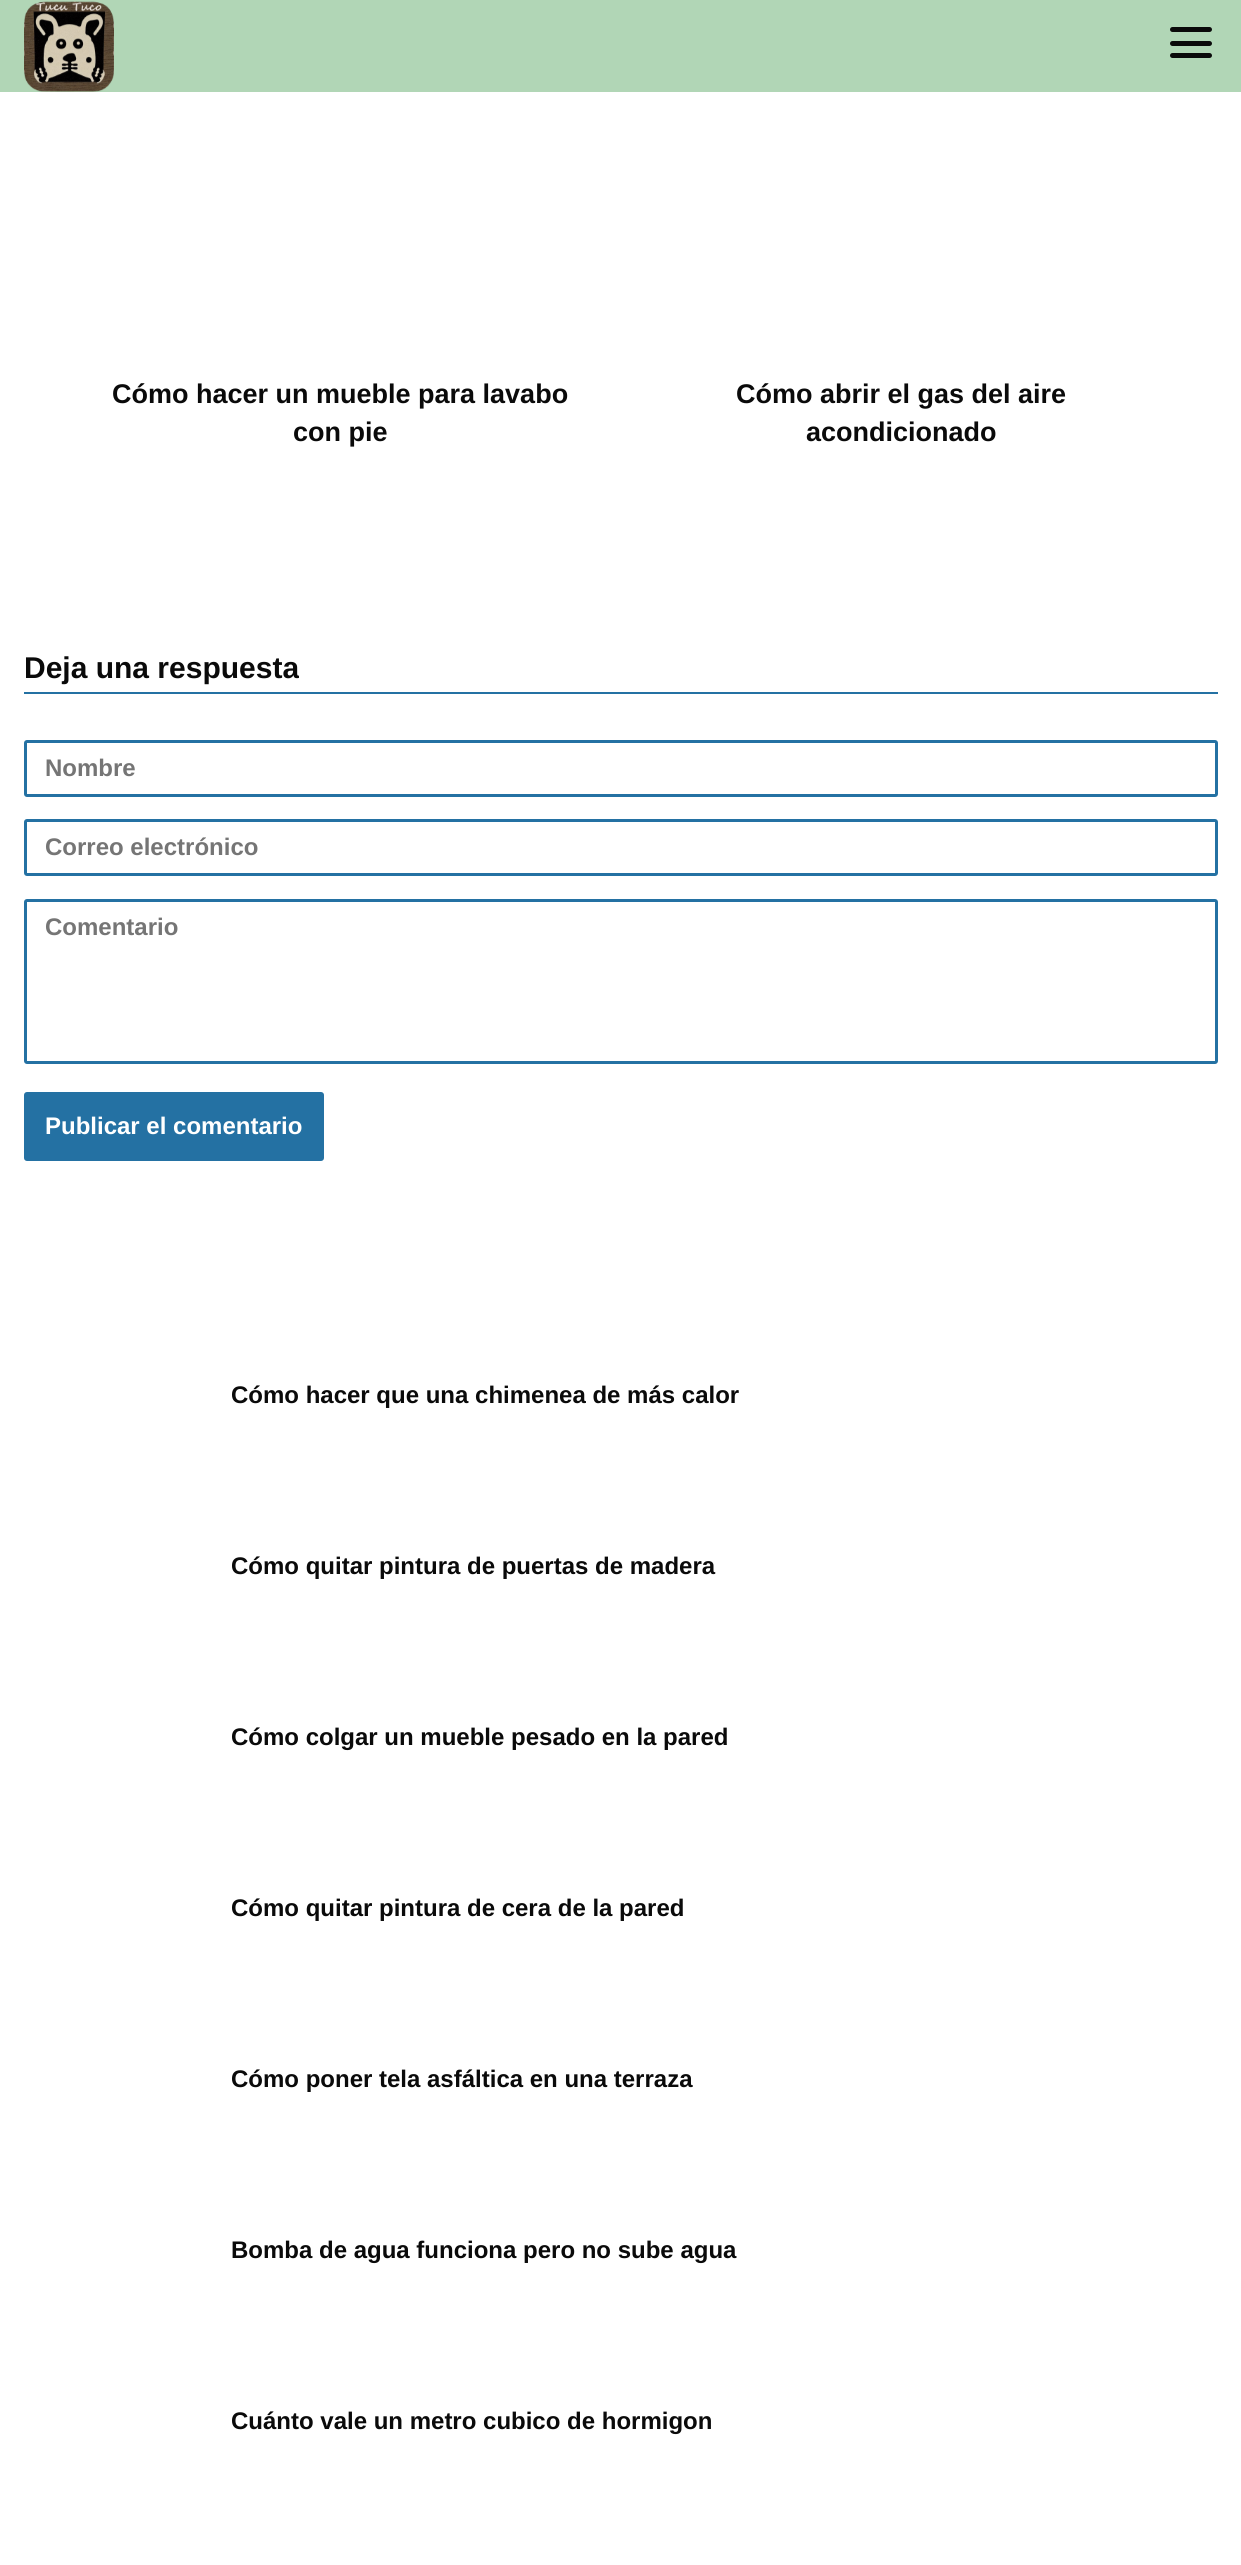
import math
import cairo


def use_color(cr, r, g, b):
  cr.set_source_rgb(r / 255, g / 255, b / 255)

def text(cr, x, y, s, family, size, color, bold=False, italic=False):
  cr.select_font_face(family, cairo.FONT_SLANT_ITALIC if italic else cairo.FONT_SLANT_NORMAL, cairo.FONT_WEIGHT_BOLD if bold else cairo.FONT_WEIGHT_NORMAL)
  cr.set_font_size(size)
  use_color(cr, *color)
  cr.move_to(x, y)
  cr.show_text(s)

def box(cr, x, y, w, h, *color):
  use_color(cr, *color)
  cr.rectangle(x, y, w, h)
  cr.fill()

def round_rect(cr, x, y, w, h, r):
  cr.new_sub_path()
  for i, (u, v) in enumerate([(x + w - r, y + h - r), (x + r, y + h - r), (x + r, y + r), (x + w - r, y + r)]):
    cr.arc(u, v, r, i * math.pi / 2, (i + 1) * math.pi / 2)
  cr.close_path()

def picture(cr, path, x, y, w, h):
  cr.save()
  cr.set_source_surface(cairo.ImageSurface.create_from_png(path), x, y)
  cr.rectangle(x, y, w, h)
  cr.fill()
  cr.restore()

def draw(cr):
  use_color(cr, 255, 255, 255)
  cr.paint()
  box(cr, 0, 0, 1241, 92, 177, 214, 182)
  picture(cr, "img_01.png", 24, 1, 90, 91)
  use_color(cr, 10, 10, 10)
  round_rect(cr, 1170, 27, 42, 5, 2.5)
  cr.fill()
  round_rect(cr, 1170, 41, 42, 5, 2.5)
  cr.fill()
  round_rect(cr, 1170, 53, 42, 5, 2.5)
  cr.fill()
  box(cr, 24, 692, 1194, 2, 36, 113, 163)
  round_rect(cr, 25.5, 741.5, 1191, 54, 1.5)
  cr.set_line_width(3)
  cr.stroke()
  round_rect(cr, 25.5, 820.5, 1191, 54, 1.5)
  cr.stroke()
  round_rect(cr, 25.5, 900.5, 1191, 162, 1.5)
  cr.stroke()
  round_rect(cr, 24, 1092, 300, 69, 3)
  cr.fill()
  text(cr, 112, 403, "Cómo hacer un mueble para lavabo", "Liberation Sans", 27, (10, 10, 10), bold=True)
  text(cr, 293, 441, "con pie", "Liberation Sans", 27, (10, 10, 10), bold=True)
  text(cr, 736, 403, "Cómo abrir el gas del aire", "Liberation Sans", 27, (10, 10, 10), bold=True)
  text(cr, 806, 441, "acondicionado", "Liberation Sans", 27, (10, 10, 10), bold=True)
  text(cr, 24, 678, "Deja una respuesta", "Liberation Sans", 30, (10, 10, 10), bold=True)
  text(cr, 45, 776, "Nombre", "Liberation Sans", 24, (117, 117, 117), bold=True)
  text(cr, 45, 855, "Correo electrónico", "Liberation Sans", 24, (117, 117, 117), bold=True)
  text(cr, 45, 935, "Comentario", "Liberation Sans", 24, (117, 117, 117), bold=True)
  text(cr, 45, 1134, "Publicar el comentario", "Liberation Sans", 24, (255, 255, 255), bold=True)
  text(cr, 231, 1403, "Cómo hacer que una chimenea de más calor", "Liberation Sans", 24, (10, 10, 10), bold=True)
  text(cr, 231, 1574, "Cómo quitar pintura de puertas de madera", "Liberation Sans", 24, (10, 10, 10), bold=True)
  text(cr, 231, 1745, "Cómo colgar un mueble pesado en la pared", "Liberation Sans", 24, (10, 10, 10), bold=True)
  text(cr, 231, 1916, "Cómo quitar pintura de cera de la pared", "Liberation Sans", 24, (10, 10, 10), bold=True)
  text(cr, 231, 2087, "Cómo poner tela asfáltica en una terraza", "Liberation Sans", 24, (10, 10, 10), bold=True)
  text(cr, 231, 2258, "Bomba de agua funciona pero no sube agua", "Liberation Sans", 24, (10, 10, 10), bold=True)
  text(cr, 231, 2429, "Cuánto vale un metro cubico de hormigon", "Liberation Sans", 24, (10, 10, 10), bold=True)


surface = cairo.ImageSurface(cairo.FORMAT_RGB24, 1241, 2565)
cr = cairo.Context(surface)
options = cairo.FontOptions()
options.set_hint_metrics(cairo.HINT_METRICS_OFF)
options.set_hint_style(cairo.HINT_STYLE_NONE)
cr.set_font_options(options)
cr.set_miter_limit(4)
draw(cr)
surface.write_to_png("out.png")
